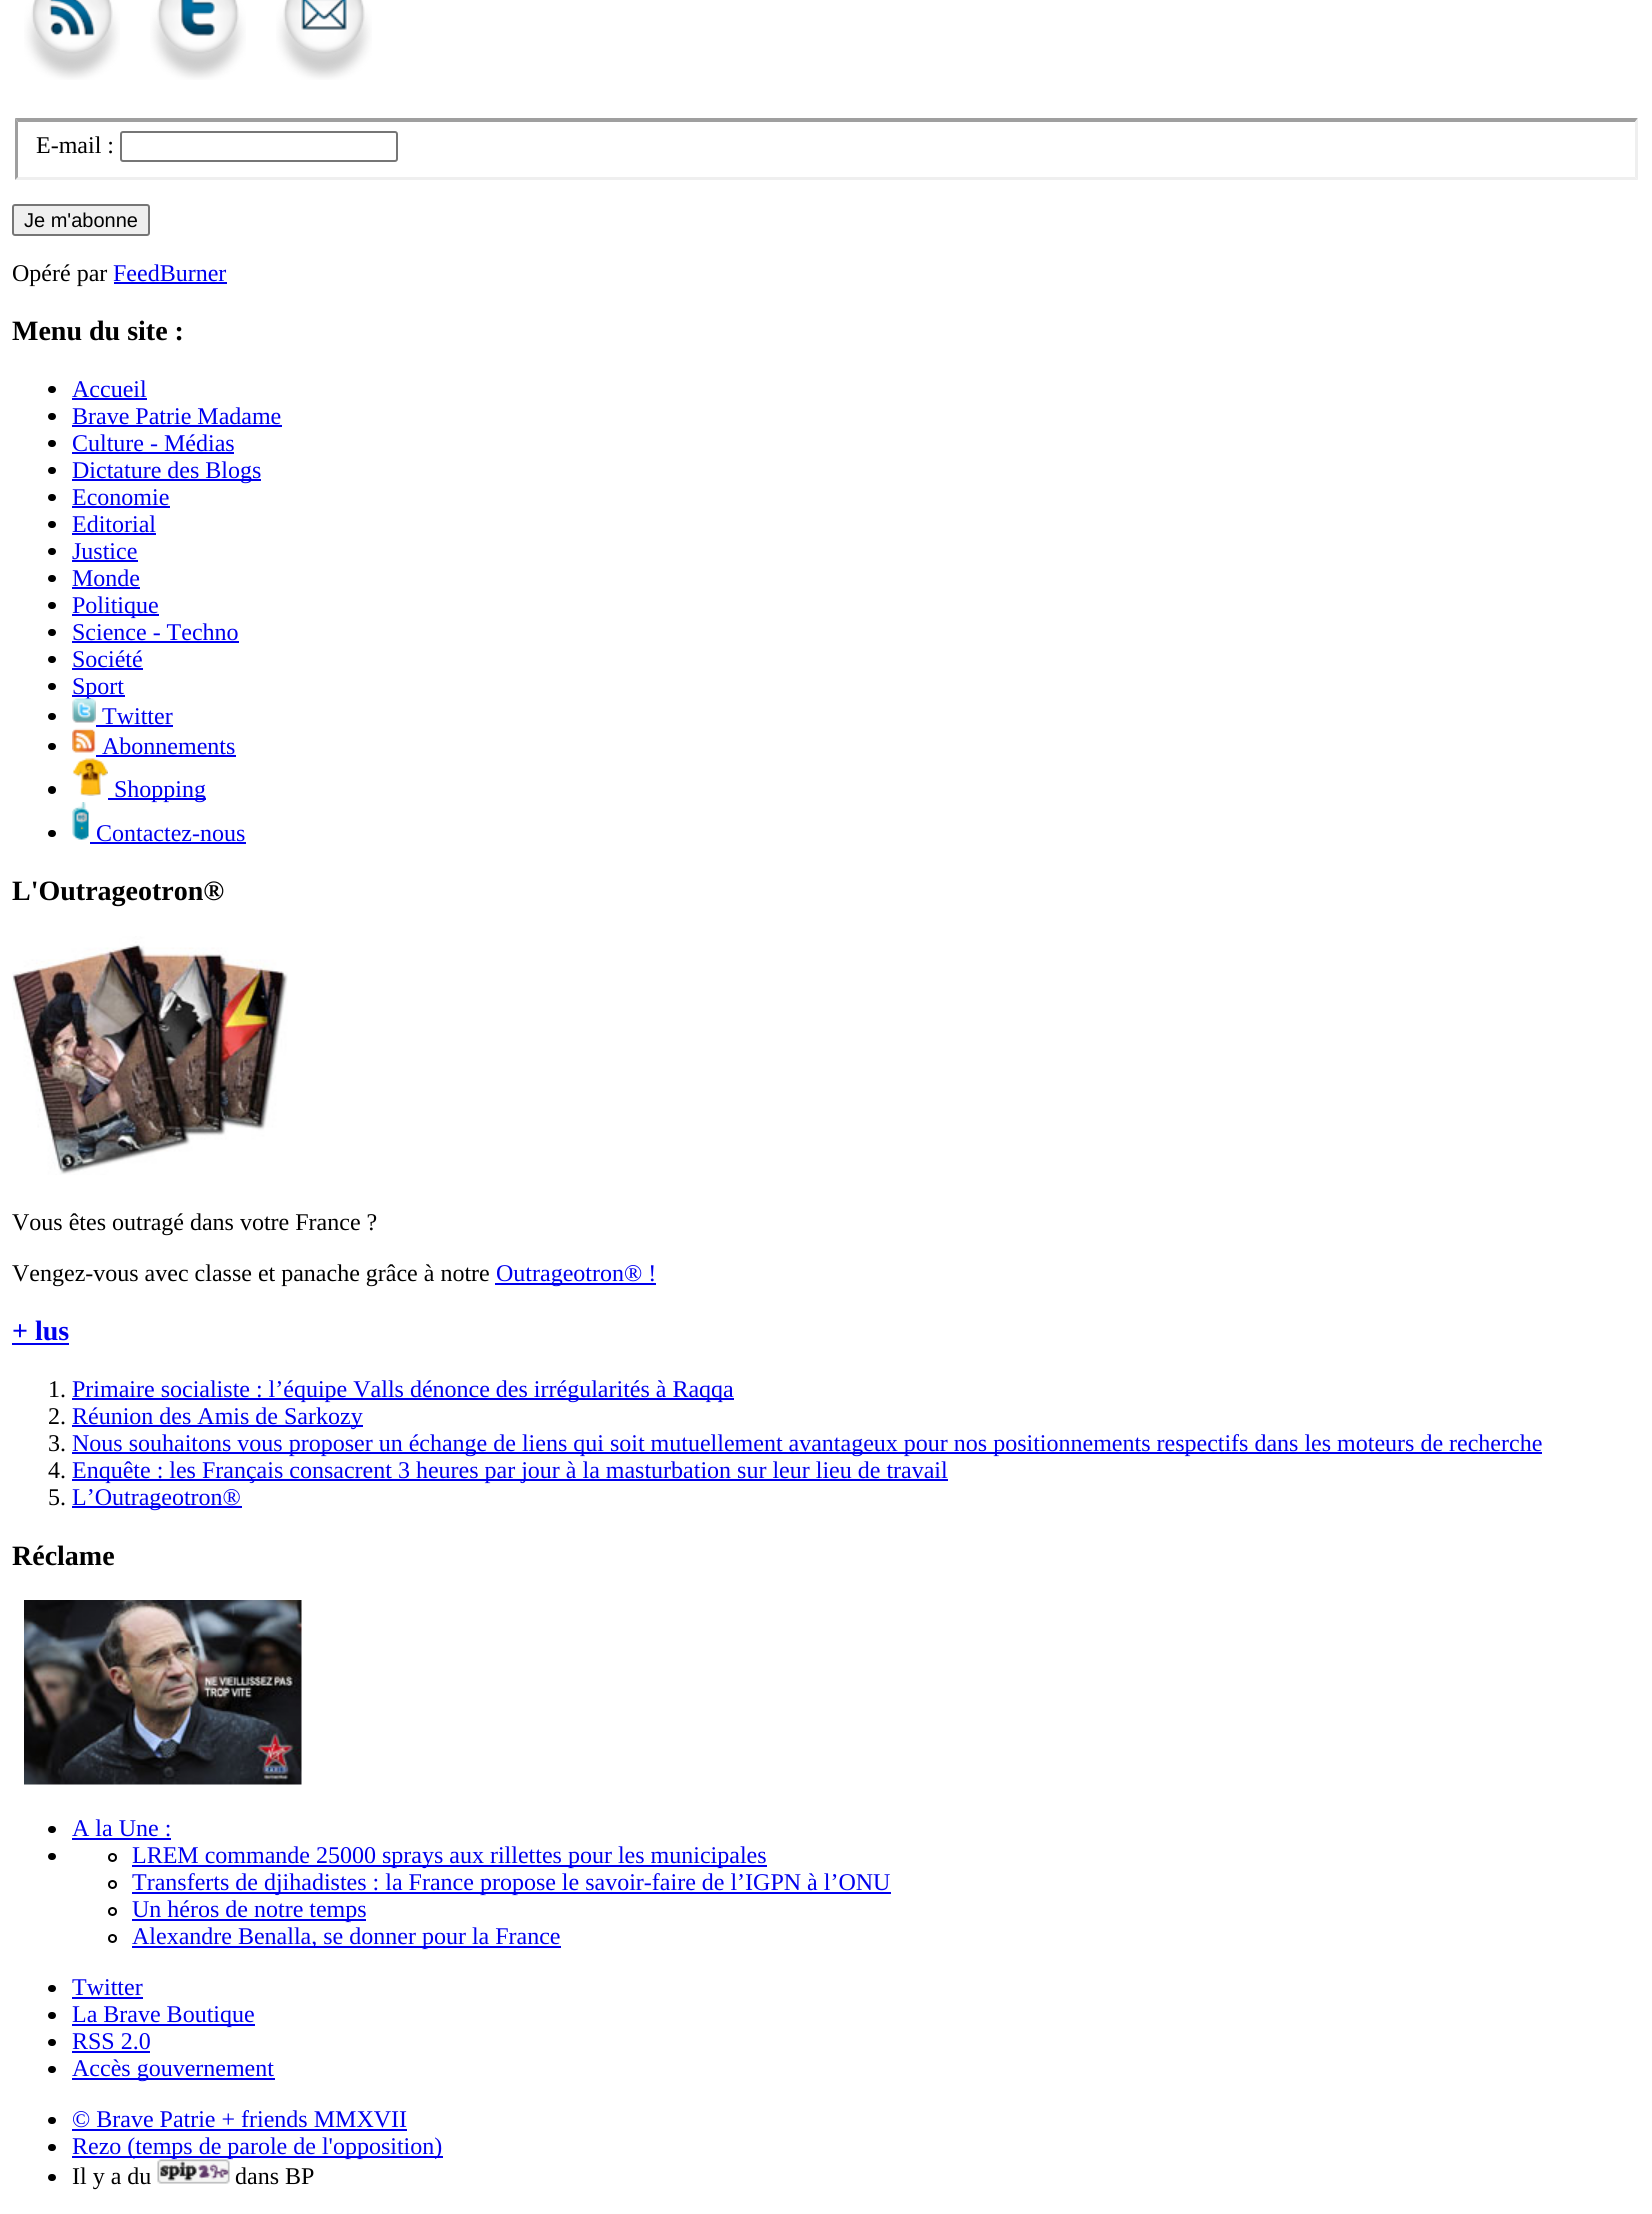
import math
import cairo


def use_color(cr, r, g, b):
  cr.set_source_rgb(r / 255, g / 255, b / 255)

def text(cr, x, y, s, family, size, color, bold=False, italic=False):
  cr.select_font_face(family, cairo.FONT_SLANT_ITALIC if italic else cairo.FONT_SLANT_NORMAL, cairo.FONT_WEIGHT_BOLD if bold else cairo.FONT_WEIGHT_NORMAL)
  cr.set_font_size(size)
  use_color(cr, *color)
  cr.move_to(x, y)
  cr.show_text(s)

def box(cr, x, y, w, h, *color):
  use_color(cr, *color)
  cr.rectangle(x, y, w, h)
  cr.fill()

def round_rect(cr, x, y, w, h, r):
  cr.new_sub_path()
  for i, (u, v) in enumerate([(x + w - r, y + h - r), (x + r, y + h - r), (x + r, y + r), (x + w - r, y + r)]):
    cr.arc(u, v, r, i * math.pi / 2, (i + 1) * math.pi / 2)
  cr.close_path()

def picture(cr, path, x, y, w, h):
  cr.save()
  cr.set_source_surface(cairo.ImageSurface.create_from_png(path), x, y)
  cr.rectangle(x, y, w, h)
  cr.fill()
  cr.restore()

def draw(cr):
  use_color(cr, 255, 255, 255)
  cr.paint()
  picture(cr, "img_01.png", 24, 0, 96, 80)
  picture(cr, "img_02.png", 150, 0, 96, 80)
  picture(cr, "img_03.png", 276, 0, 96, 80)
  use_color(cr, 159, 159, 159)
  cr.new_path()
  cr.move_to(15, 118)
  cr.line_to(1638, 118)
  cr.line_to(1635, 122)
  cr.line_to(18, 122)
  cr.close_path()
  cr.fill()
  use_color(cr, 239, 239, 239)
  cr.new_path()
  cr.move_to(1638, 118)
  cr.line_to(1638, 180)
  cr.line_to(1635, 177)
  cr.line_to(1635, 122)
  cr.close_path()
  cr.fill()
  cr.new_path()
  cr.move_to(1638, 180)
  cr.line_to(15, 180)
  cr.line_to(18, 177)
  cr.line_to(1635, 177)
  cr.close_path()
  cr.fill()
  use_color(cr, 159, 159, 159)
  cr.new_path()
  cr.move_to(15, 180)
  cr.line_to(15, 118)
  cr.line_to(18, 122)
  cr.line_to(18, 177)
  cr.close_path()
  cr.fill()
  round_rect(cr, 121, 132, 276, 29, 2)
  use_color(cr, 118, 118, 118)
  cr.stroke()
  use_color(cr, 239, 239, 239)
  round_rect(cr, 13, 205, 136, 30, 2)
  cr.fill_preserve()
  use_color(cr, 118, 118, 118)
  cr.stroke()
  box(cr, 114, 282, 113, 2, 0, 0, 238)
  use_color(cr, 0, 0, 0)
  round_rect(cr, 48, 386, 8, 7, 3.5)
  cr.fill()
  box(cr, 72, 398, 75, 2, 0, 0, 238)
  use_color(cr, 0, 0, 0)
  round_rect(cr, 48, 413, 8, 7, 3.5)
  cr.fill()
  box(cr, 72, 425, 210, 2, 0, 0, 238)
  use_color(cr, 0, 0, 0)
  round_rect(cr, 48, 440, 8, 7, 3.5)
  cr.fill()
  box(cr, 72, 452, 162, 2, 0, 0, 238)
  use_color(cr, 0, 0, 0)
  round_rect(cr, 48, 467, 8, 7, 3.5)
  cr.fill()
  box(cr, 72, 479, 189, 2, 0, 0, 238)
  use_color(cr, 0, 0, 0)
  round_rect(cr, 48, 494, 8, 7, 3.5)
  cr.fill()
  box(cr, 72, 506, 98, 2, 0, 0, 238)
  use_color(cr, 0, 0, 0)
  round_rect(cr, 48, 521, 8, 7, 3.5)
  cr.fill()
  box(cr, 72, 533, 84, 2, 0, 0, 238)
  use_color(cr, 0, 0, 0)
  round_rect(cr, 48, 548, 8, 7, 3.5)
  cr.fill()
  box(cr, 72, 560, 66, 2, 0, 0, 238)
  use_color(cr, 0, 0, 0)
  round_rect(cr, 48, 575, 8, 7, 3.5)
  cr.fill()
  box(cr, 72, 587, 68, 2, 0, 0, 238)
  use_color(cr, 0, 0, 0)
  round_rect(cr, 48, 602, 8, 7, 3.5)
  cr.fill()
  box(cr, 72, 614, 87, 2, 0, 0, 238)
  use_color(cr, 0, 0, 0)
  round_rect(cr, 48, 629, 8, 7, 3.5)
  cr.fill()
  box(cr, 72, 641, 167, 2, 0, 0, 238)
  use_color(cr, 0, 0, 0)
  round_rect(cr, 48, 656, 8, 7, 3.5)
  cr.fill()
  box(cr, 72, 668, 71, 2, 0, 0, 238)
  use_color(cr, 0, 0, 0)
  round_rect(cr, 48, 683, 8, 7, 3.5)
  cr.fill()
  box(cr, 72, 695, 53, 2, 0, 0, 238)
  use_color(cr, 0, 0, 0)
  round_rect(cr, 48, 713, 8, 7, 3.5)
  cr.fill()
  box(cr, 96, 725, 77, 2, 0, 0, 238)
  use_color(cr, 0, 0, 0)
  round_rect(cr, 48, 743, 8, 7, 3.5)
  cr.fill()
  picture(cr, "img_05.png", 72, 728, 24, 25)
  box(cr, 96, 755, 140, 2, 0, 0, 238)
  use_color(cr, 0, 0, 0)
  cr.arc(52, 790, 4, 0, 2 * math.pi)
  cr.fill()
  picture(cr, "img_06.png", 72, 758, 36, 38)
  box(cr, 108, 798, 98, 2, 0, 0, 238)
  use_color(cr, 0, 0, 0)
  round_rect(cr, 48, 830, 8, 7, 3.5)
  cr.fill()
  picture(cr, "img_07.png", 72, 802, 17, 38)
  box(cr, 90, 842, 156, 2, 0, 0, 238)
  picture(cr, "img_08.png", 12, 936, 276, 239)
  box(cr, 495, 1283, 161, 2, 0, 0, 238)
  box(cr, 12, 1343, 57, 2, 0, 0, 238)
  box(cr, 72, 1398, 662, 2, 0, 0, 238)
  box(cr, 72, 1425, 291, 2, 0, 0, 238)
  box(cr, 72, 1452, 1470, 2, 0, 0, 238)
  box(cr, 72, 1479, 876, 2, 0, 0, 238)
  box(cr, 72, 1506, 170, 2, 0, 0, 238)
  picture(cr, "img_09.png", 24, 1600, 278, 185)
  use_color(cr, 0, 0, 0)
  round_rect(cr, 48, 1826, 8, 7, 3.5)
  cr.fill()
  box(cr, 72, 1838, 99, 2, 0, 0, 238)
  use_color(cr, 0, 0, 0)
  round_rect(cr, 48, 1853, 8, 7, 3.5)
  cr.fill()
  cr.arc(112.5, 1857.5, 3.5, 0, 2 * math.pi)
  cr.stroke()
  box(cr, 132, 1865, 635, 2, 0, 0, 238)
  cr.arc(112.5, 1884.5, 3.5, 0, 2 * math.pi)
  use_color(cr, 0, 0, 0)
  cr.stroke()
  box(cr, 132, 1892, 759, 2, 0, 0, 238)
  cr.arc(112.5, 1911.5, 3.5, 0, 2 * math.pi)
  use_color(cr, 0, 0, 0)
  cr.stroke()
  box(cr, 132, 1919, 234, 2, 0, 0, 238)
  cr.arc(112.5, 1938.5, 3.5, 0, 2 * math.pi)
  use_color(cr, 0, 0, 0)
  cr.stroke()
  box(cr, 132, 1946, 429, 2, 0, 0, 238)
  use_color(cr, 0, 0, 0)
  round_rect(cr, 48, 1985, 8, 7, 3.5)
  cr.fill()
  box(cr, 72, 1997, 71, 2, 0, 0, 238)
  use_color(cr, 0, 0, 0)
  round_rect(cr, 48, 2012, 8, 7, 3.5)
  cr.fill()
  box(cr, 72, 2024, 183, 2, 0, 0, 238)
  use_color(cr, 0, 0, 0)
  round_rect(cr, 48, 2039, 8, 7, 3.5)
  cr.fill()
  box(cr, 72, 2051, 78, 2, 0, 0, 238)
  use_color(cr, 0, 0, 0)
  round_rect(cr, 48, 2066, 8, 7, 3.5)
  cr.fill()
  box(cr, 72, 2078, 203, 2, 0, 0, 238)
  use_color(cr, 0, 0, 0)
  round_rect(cr, 48, 2117, 8, 7, 3.5)
  cr.fill()
  box(cr, 72, 2129, 335, 2, 0, 0, 238)
  use_color(cr, 0, 0, 0)
  round_rect(cr, 48, 2144, 8, 7, 3.5)
  cr.fill()
  box(cr, 72, 2156, 371, 2, 0, 0, 238)
  use_color(cr, 0, 0, 0)
  round_rect(cr, 48, 2174, 8, 7, 3.5)
  cr.fill()
  text(cr, 36, 153, "E-mail :", "Liberation Serif", 24, (0, 0, 0))
  text(cr, 24, 227, "Je m'abonne", "Liberation Sans", 20, (0, 0, 0))
  text(cr, 12, 281, "Opéré par", "Liberation Serif", 24, (0, 0, 0))
  text(cr, 113, 281, "FeedBurner", "Liberation Serif", 24, (0, 0, 238))
  text(cr, 12, 340, "Menu du site :", "Liberation Serif", 28, (0, 0, 0), bold=True)
  text(cr, 72, 397, "Accueil", "Liberation Serif", 24, (0, 0, 238))
  text(cr, 72, 424, "Brave Patrie Madame", "Liberation Serif", 24, (0, 0, 238))
  text(cr, 72, 451, "Culture - Médias", "Liberation Serif", 24, (0, 0, 238))
  text(cr, 72, 478, "Dictature des Blogs", "Liberation Serif", 24, (0, 0, 238))
  text(cr, 72, 505, "Economie", "Liberation Serif", 24, (0, 0, 238))
  text(cr, 72, 532, "Editorial", "Liberation Serif", 24, (0, 0, 238))
  text(cr, 72, 559, "Justice", "Liberation Serif", 24, (0, 0, 238))
  text(cr, 72, 586, "Monde", "Liberation Serif", 24, (0, 0, 238))
  text(cr, 72, 613, "Politique", "Liberation Serif", 24, (0, 0, 238))
  text(cr, 72, 640, "Science - Techno", "Liberation Serif", 24, (0, 0, 238))
  text(cr, 72, 667, "Société", "Liberation Serif", 24, (0, 0, 238))
  text(cr, 72, 694, "Sport", "Liberation Serif", 24, (0, 0, 238))
  picture(cr, "img_04.png", 72, 698, 24, 25)
  text(cr, 102, 724, "Twitter", "Liberation Serif", 24, (0, 0, 238))
  text(cr, 102, 754, "Abonnements", "Liberation Serif", 24, (0, 0, 238))
  text(cr, 114, 797, "Shopping", "Liberation Serif", 24, (0, 0, 238))
  text(cr, 96, 841, "Contactez-nous", "Liberation Serif", 24, (0, 0, 238))
  text(cr, 12, 900, "L'Outrageotron®", "Liberation Serif", 28, (0, 0, 0), bold=True)
  text(cr, 12, 1230, "Vous êtes outragé dans votre France ?", "Liberation Serif", 24, (0, 0, 0))
  text(cr, 12, 1281, "Vengez-vous avec classe et panache grâce à notre", "Liberation Serif", 24, (0, 0, 0))
  text(cr, 496, 1281, "Outrageotron® !", "Liberation Serif", 24, (0, 0, 238))
  text(cr, 12, 1340, "+ lus", "Liberation Serif", 28, (0, 0, 238), bold=True)
  text(cr, 48, 1397, "1.", "Liberation Serif", 24, (0, 0, 0))
  text(cr, 72, 1397, "Primaire socialiste : l’équipe Valls dénonce des irrégularités à Raqqa", "Liberation Serif", 24, (0, 0, 238))
  text(cr, 48, 1424, "2.", "Liberation Serif", 24, (0, 0, 0))
  text(cr, 72, 1424, "Réunion des Amis de Sarkozy", "Liberation Serif", 24, (0, 0, 238))
  text(cr, 48, 1451, "3.", "Liberation Serif", 24, (0, 0, 0))
  text(cr, 72, 1451, "Nous souhaitons vous proposer un échange de liens qui soit mutuellement avantageux pour nos positionnements respectifs dans les moteurs de recherche", "Liberation Serif", 24, (0, 0, 238))
  text(cr, 48, 1478, "4.", "Liberation Serif", 24, (0, 0, 0))
  text(cr, 72, 1478, "Enquête : les Français consacrent 3 heures par jour à la masturbation sur leur lieu de travail", "Liberation Serif", 24, (0, 0, 238))
  text(cr, 48, 1505, "5.", "Liberation Serif", 24, (0, 0, 0))
  text(cr, 72, 1505, "L’Outrageotron®", "Liberation Serif", 24, (0, 0, 238))
  text(cr, 12, 1565, "Réclame", "Liberation Serif", 28, (0, 0, 0), bold=True)
  text(cr, 72, 1836, "A la Une :", "Liberation Serif", 24, (0, 0, 238))
  text(cr, 132, 1863, "LREM commande 25000 sprays aux rillettes pour les municipales", "Liberation Serif", 24, (0, 0, 238))
  text(cr, 132, 1890, "Transferts de djihadistes : la France propose le savoir-faire de l’IGPN à l’ONU", "Liberation Serif", 24, (0, 0, 238))
  text(cr, 132, 1917, "Un héros de notre temps", "Liberation Serif", 24, (0, 0, 238))
  text(cr, 132, 1944, "Alexandre Benalla, se donner pour la France", "Liberation Serif", 24, (0, 0, 238))
  text(cr, 72, 1995, "Twitter", "Liberation Serif", 24, (0, 0, 238))
  text(cr, 72, 2022, "La Brave Boutique", "Liberation Serif", 24, (0, 0, 238))
  text(cr, 72, 2049, "RSS 2.0", "Liberation Serif", 24, (0, 0, 238))
  text(cr, 72, 2076, "Accès gouvernement", "Liberation Serif", 24, (0, 0, 238))
  text(cr, 72, 2127, "© Brave Patrie + friends MMXVII", "Liberation Serif", 24, (0, 0, 238))
  text(cr, 72, 2154, "Rezo (temps de parole de l'opposition)", "Liberation Serif", 24, (0, 0, 238))
  text(cr, 72, 2184, "Il y a du", "Liberation Serif", 24, (0, 0, 0))
  picture(cr, "img_10.png", 157, 2159, 73, 25)
  text(cr, 235, 2184, "dans BP", "Liberation Serif", 24, (0, 0, 0))


surface = cairo.ImageSurface(cairo.FORMAT_RGB24, 1652, 2214)
cr = cairo.Context(surface)
options = cairo.FontOptions()
options.set_hint_metrics(cairo.HINT_METRICS_OFF)
options.set_hint_style(cairo.HINT_STYLE_NONE)
cr.set_font_options(options)
cr.set_miter_limit(4)
draw(cr)
surface.write_to_png("out.png")
